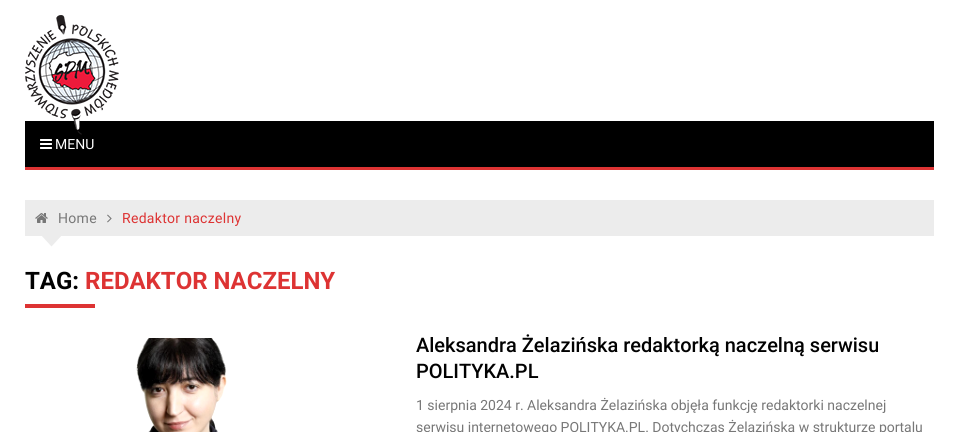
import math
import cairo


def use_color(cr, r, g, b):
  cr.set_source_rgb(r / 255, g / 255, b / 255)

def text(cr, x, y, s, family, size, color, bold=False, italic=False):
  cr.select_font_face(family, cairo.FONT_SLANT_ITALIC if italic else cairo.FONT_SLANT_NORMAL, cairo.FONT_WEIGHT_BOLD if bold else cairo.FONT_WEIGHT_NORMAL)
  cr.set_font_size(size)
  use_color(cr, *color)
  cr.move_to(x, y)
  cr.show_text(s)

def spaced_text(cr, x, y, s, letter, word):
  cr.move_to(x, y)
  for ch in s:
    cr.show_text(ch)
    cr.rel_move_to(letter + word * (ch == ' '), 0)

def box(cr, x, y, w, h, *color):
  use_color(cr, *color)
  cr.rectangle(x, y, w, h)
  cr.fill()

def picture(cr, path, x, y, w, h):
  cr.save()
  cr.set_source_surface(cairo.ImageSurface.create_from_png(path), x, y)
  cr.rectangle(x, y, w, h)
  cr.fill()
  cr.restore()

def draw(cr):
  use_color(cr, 255, 255, 255)
  cr.paint()
  box(cr, 25, 121, 909, 46, 0, 0, 0)
  picture(cr, "img_01.png", 25, 15, 94, 120)
  box(cr, 25, 167, 909, 3, 221, 51, 51)
  picture(cr, "img_02.png", 40, 139, 12, 10)
  box(cr, 25, 200, 909, 36, 236, 236, 236)
  picture(cr, "img_03.png", 35, 213, 13, 10)
  picture(cr, "img_04.png", 107, 214, 5, 9)
  cr.new_path()
  cr.move_to(39.5, 233.5)
  cr.line_to(63.5, 233.5)
  cr.line_to(51.5, 246.5)
  cr.close_path()
  cr.fill()
  box(cr, 25, 304, 70, 4, 221, 51, 51)
  picture(cr, "img_05.png", 136, 338, 91, 94)
  text(cr, 55, 149, "MENU", "Roboto", 14, (255, 255, 255))
  use_color(cr, 119, 119, 119)
  spaced_text(cr, 58, 223, "Home", 0.3, 0)
  use_color(cr, 221, 51, 51)
  spaced_text(cr, 122, 223, "Redaktor naczelny", 0.3, 0)
  text(cr, 25, 289, "TAG:", "Roboto", 24, (1, 1, 1), bold=True)
  text(cr, 85, 289, "REDAKTOR NACZELNY", "Roboto", 24, (221, 51, 51), bold=True)
  text(cr, 416, 352, "Aleksandra Żelazińska redaktorką naczelną serwisu", "Roboto Medium", 20, (1, 1, 1))
  text(cr, 416, 378, "POLITYKA.PL", "Roboto Medium", 20, (1, 1, 1))
  text(cr, 416, 410, "1 sierpnia 2024 r. Aleksandra Żelazińska objęła funkcję redaktorki naczelnej", "Roboto", 14, (119, 119, 119))
  text(cr, 416, 432, "serwisu internetowego POLITYKA.PL. Dotychczas Żelazińska w strukturze portalu", "Roboto", 14, (119, 119, 119))


surface = cairo.ImageSurface(cairo.FORMAT_RGB24, 959, 432)
cr = cairo.Context(surface)
options = cairo.FontOptions()
options.set_hint_metrics(cairo.HINT_METRICS_OFF)
options.set_hint_style(cairo.HINT_STYLE_NONE)
cr.set_font_options(options)
cr.set_miter_limit(4)
draw(cr)
surface.write_to_png("out.png")
